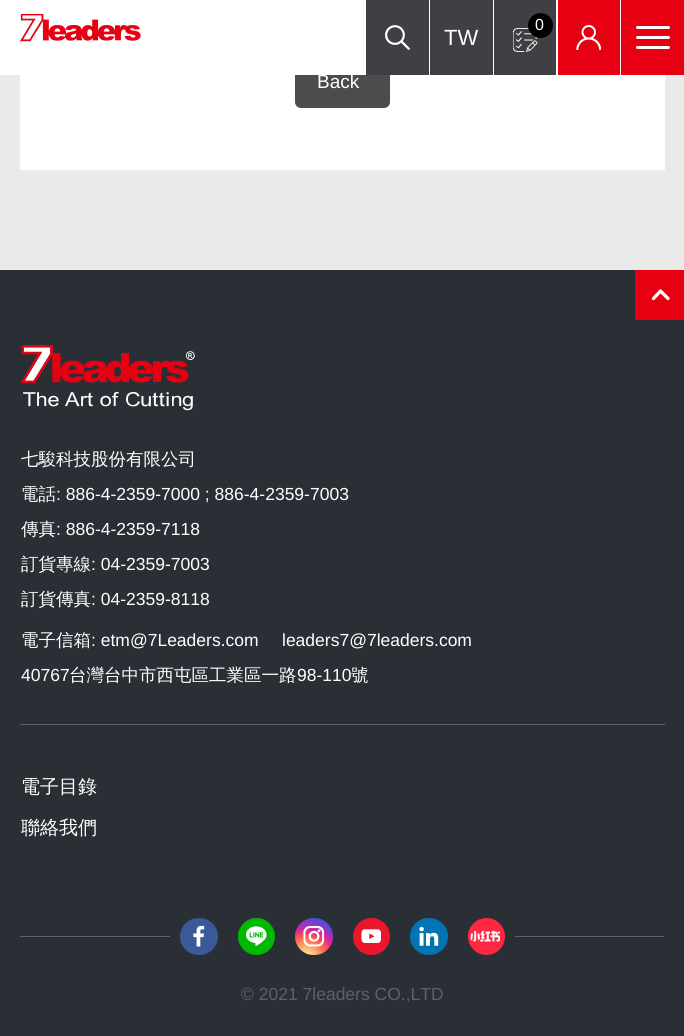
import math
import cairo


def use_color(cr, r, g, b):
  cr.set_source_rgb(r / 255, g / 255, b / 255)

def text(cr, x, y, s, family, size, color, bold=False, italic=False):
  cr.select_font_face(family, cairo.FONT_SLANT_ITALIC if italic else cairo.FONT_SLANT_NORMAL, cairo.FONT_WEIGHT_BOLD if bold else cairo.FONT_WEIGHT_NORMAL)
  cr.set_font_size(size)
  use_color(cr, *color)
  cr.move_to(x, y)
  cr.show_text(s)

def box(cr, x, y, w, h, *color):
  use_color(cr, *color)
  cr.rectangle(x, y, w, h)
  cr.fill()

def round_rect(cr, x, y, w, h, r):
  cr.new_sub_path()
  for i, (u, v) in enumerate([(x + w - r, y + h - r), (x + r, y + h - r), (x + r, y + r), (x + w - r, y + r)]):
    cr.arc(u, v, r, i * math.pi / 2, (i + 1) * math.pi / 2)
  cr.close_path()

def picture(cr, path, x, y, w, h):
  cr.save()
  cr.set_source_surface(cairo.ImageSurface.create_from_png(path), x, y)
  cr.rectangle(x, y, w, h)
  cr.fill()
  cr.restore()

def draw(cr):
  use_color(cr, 234, 234, 234)
  cr.paint()
  box(cr, 20, 75, 645, 95, 255, 255, 255)
  use_color(cr, 76, 76, 76)
  round_rect(cr, 295, 53, 95, 55, 6)
  cr.fill()
  box(cr, 0, 0, 621, 75, 255, 255, 255)
  picture(cr, "img_01.png", 20, 14, 121, 28)
  box(cr, 366, 0, 63, 75, 62, 64, 67)
  picture(cr, "img_02.png", 385, 25, 25, 25)
  box(cr, 494, 0, 62, 75, 62, 64, 67)
  picture(cr, "img_03.png", 513, 28, 25, 24)
  use_color(cr, 0, 0, 0)
  cr.arc(540.5, 25.5, 12.5, 0, 2 * math.pi)
  cr.fill()
  box(cr, 558, 0, 62, 75, 230, 0, 18)
  picture(cr, "img_04.png", 576, 25, 25, 25)
  box(cr, 621, 0, 63, 75, 230, 0, 18)
  use_color(cr, 255, 255, 255)
  round_rect(cr, 636, 26, 34, 3, 1.5)
  cr.fill()
  round_rect(cr, 636, 36, 34, 3, 1.5)
  cr.fill()
  round_rect(cr, 636, 46, 34, 3, 1.5)
  cr.fill()
  box(cr, 430, 0, 63, 75, 62, 64, 67)
  box(cr, 0, 270, 684, 766, 42, 47, 53)
  box(cr, 635, 270, 49, 50, 230, 0, 18)
  cr.new_path()
  cr.move_to(668, 298.5)
  cr.line_to(660.5, 291)
  cr.line_to(653.5, 298.5)
  use_color(cr, 255, 255, 255)
  cr.set_line_width(3.3)
  cr.set_line_cap(cairo.LINE_CAP_ROUND)
  cr.set_line_join(cairo.LINE_JOIN_ROUND)
  cr.stroke()
  picture(cr, "img_05.png", 20, 345, 175, 66)
  box(cr, 20, 724, 645, 1, 97, 101, 105)
  box(cr, 20, 936, 644, 1, 97, 101, 105)
  box(cr, 170, 936, 345, 1, 42, 47, 53)
  use_color(cr, 59, 89, 152)
  round_rect(cr, 180, 918, 38, 37, 18.5)
  cr.fill()
  picture(cr, "img_06.png", 193, 925, 12, 22)
  use_color(cr, 0, 185, 0)
  cr.arc(256.5, 936.5, 18.5, 0, 2 * math.pi)
  cr.fill()
  picture(cr, "img_07.png", 245, 926, 22, 20)
  gradient = cairo.RadialGradient(306, 958, 0, 306, 958, 48)
  gradient.add_color_stop_rgba(0, 0.992, 0.957, 0.592, 1)
  gradient.add_color_stop_rgba(0.05, 0.992, 0.957, 0.592, 1)
  gradient.add_color_stop_rgba(0.45, 0.992, 0.349, 0.286, 1)
  gradient.add_color_stop_rgba(0.6, 0.839, 0.141, 0.624, 1)
  gradient.add_color_stop_rgba(0.9, 0.157, 0.353, 0.922, 1)
  cr.set_source(gradient)
  round_rect(cr, 295, 918, 38, 37, 18.5)
  cr.fill()
  picture(cr, "img_08.png", 303, 926, 22, 21)
  use_color(cr, 236, 22, 44)
  cr.arc(371.5, 936.5, 18.5, 0, 2 * math.pi)
  cr.fill()
  picture(cr, "img_09.png", 361, 929, 21, 14)
  use_color(cr, 2, 116, 179)
  round_rect(cr, 410, 918, 38, 37, 18.5)
  cr.fill()
  picture(cr, "img_10.png", 419, 926, 20, 20)
  use_color(cr, 255, 39, 65)
  cr.arc(486.5, 936.5, 18.5, 0, 2 * math.pi)
  cr.fill()
  picture(cr, "img_11.png", 470, 930, 31, 12)
  text(cr, 535, 30, "0", "Liberation Sans", 16, (255, 255, 255))
  text(cr, 444, 45, "TW", "Liberation Sans", 22, (255, 255, 255))
  text(cr, 317, 88, "Back", "Liberation Sans", 19, (255, 255, 255))
  text(cr, 21, 465, "七駿科技股份有限公司", "WenQuanYi Zen Hei Medium", 17.5, (255, 255, 255))
  text(cr, 21, 500, "電話", "WenQuanYi Zen Hei Medium", 17.5, (255, 255, 255))
  text(cr, 56, 500, ": 886-4-2359-7000 ; 886-4-2359-7003", "Liberation Sans", 17.5, (255, 255, 255))
  text(cr, 21, 535, "傳真", "WenQuanYi Zen Hei Medium", 17.5, (255, 255, 255))
  text(cr, 56, 535, ": 886-4-2359-7118", "Liberation Sans", 17.5, (255, 255, 255))
  text(cr, 21, 570, "訂貨專線", "WenQuanYi Zen Hei Medium", 17.5, (255, 255, 255))
  text(cr, 91, 570, ": 04-2359-7003", "Liberation Sans", 17.5, (255, 255, 255))
  text(cr, 21, 605, "訂貨傳真", "WenQuanYi Zen Hei Medium", 17.5, (255, 255, 255))
  text(cr, 91, 605, ": 04-2359-8118", "Liberation Sans", 17.5, (255, 255, 255))
  text(cr, 21, 646, "電子信箱", "WenQuanYi Zen Hei Medium", 17.5, (255, 255, 255))
  text(cr, 91, 646, ": etm@7Leaders.com", "Liberation Sans", 17.5, (255, 255, 255))
  text(cr, 282, 646, "leaders7@7leaders.com", "Liberation Sans", 17.5, (255, 255, 255))
  text(cr, 21, 681, "40767", "Liberation Sans", 17.5, (255, 255, 255))
  text(cr, 69, 681, "台灣台中市西屯區工業區一路", "WenQuanYi Zen Hei Medium", 17.5, (255, 255, 255))
  text(cr, 297, 681, "98-110", "Liberation Sans", 17.5, (255, 255, 255))
  text(cr, 351, 681, "號", "WenQuanYi Zen Hei Medium", 17.5, (255, 255, 255))
  text(cr, 21, 793, "電子目錄", "WenQuanYi Zen Hei Medium", 19, (255, 255, 255))
  text(cr, 21, 834, "聯絡我們", "WenQuanYi Zen Hei Medium", 19, (255, 255, 255))
  text(cr, 241, 1000, "© 2021 7leaders CO.,LTD", "Liberation Sans", 17.5, (93, 97, 101))


surface = cairo.ImageSurface(cairo.FORMAT_RGB24, 684, 1036)
cr = cairo.Context(surface)
options = cairo.FontOptions()
options.set_hint_metrics(cairo.HINT_METRICS_OFF)
options.set_hint_style(cairo.HINT_STYLE_NONE)
cr.set_font_options(options)
cr.set_miter_limit(4)
draw(cr)
surface.write_to_png("out.png")
